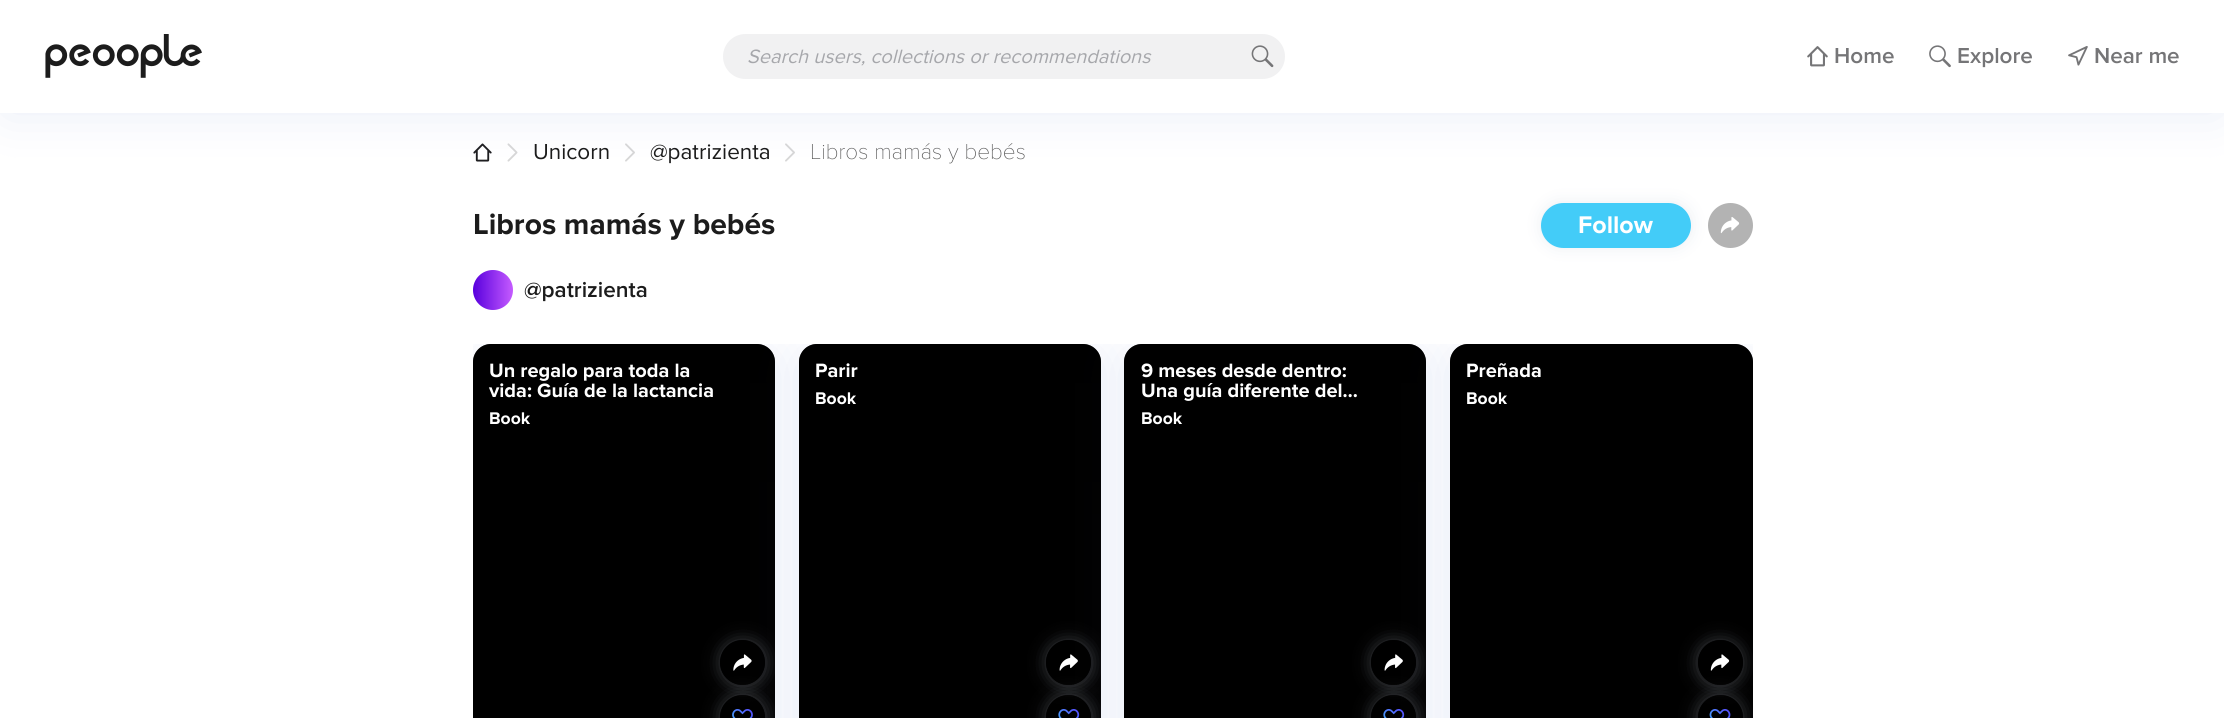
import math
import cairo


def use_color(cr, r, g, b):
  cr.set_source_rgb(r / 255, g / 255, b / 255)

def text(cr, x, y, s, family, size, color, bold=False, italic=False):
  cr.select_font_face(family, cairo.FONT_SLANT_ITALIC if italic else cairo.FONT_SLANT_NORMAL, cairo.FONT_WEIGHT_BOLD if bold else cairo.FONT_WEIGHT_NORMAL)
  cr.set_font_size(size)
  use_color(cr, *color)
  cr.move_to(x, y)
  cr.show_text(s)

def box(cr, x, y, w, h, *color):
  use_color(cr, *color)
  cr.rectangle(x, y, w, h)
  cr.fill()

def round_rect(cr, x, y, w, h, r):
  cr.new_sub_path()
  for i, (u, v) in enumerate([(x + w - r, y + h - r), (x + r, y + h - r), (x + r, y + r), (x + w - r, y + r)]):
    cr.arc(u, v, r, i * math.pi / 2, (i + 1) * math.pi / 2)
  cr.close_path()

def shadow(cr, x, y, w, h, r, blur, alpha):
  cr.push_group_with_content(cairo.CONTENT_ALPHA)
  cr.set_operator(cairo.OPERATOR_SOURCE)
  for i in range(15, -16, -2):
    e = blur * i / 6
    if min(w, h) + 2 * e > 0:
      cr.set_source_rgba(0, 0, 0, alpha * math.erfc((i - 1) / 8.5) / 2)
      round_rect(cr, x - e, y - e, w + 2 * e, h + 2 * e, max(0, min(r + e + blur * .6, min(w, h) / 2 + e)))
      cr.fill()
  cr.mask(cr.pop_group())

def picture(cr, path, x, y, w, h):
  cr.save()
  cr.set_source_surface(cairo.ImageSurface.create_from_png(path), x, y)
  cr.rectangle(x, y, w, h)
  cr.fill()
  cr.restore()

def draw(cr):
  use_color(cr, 255, 255, 255)
  cr.paint()
  picture(cr, "img_06.png", 473, 143, 19, 19)
  picture(cr, "img_07.png", 507, 143, 11, 19)
  picture(cr, "img_08.png", 625, 143, 10, 19)
  picture(cr, "img_08.png", 785, 143, 10, 19)
  use_color(cr, 128, 154, 211)
  shadow(cr, 6, 11, 2213, 100, 0, 25.5, 0.2)
  box(cr, 0, 0, 2224, 113, 255, 255, 255)
  picture(cr, "img_01.png", 45, 34, 157, 44)
  use_color(cr, 241, 241, 242)
  round_rect(cr, 723, 34, 562, 45, 22.5)
  cr.fill()
  picture(cr, "img_02.png", 1251, 45, 23, 23)
  picture(cr, "img_03.png", 1807, 46, 21, 21)
  picture(cr, "img_04.png", 1929, 45, 22, 23)
  picture(cr, "img_05.png", 2068, 46, 20, 20)
  use_color(cr, 195, 203, 217)
  shadow(cr, 1544, 205, 145, 40, 20, 9, 0.4)
  use_color(cr, 67, 204, 248)
  round_rect(cr, 1541, 203, 150, 45, 22.5)
  cr.fill()
  cr.set_source_rgba(0, 0, 0, 0.3)
  cr.arc(1730.5, 225.5, 22.5, 0, 2 * math.pi)
  cr.fill()
  picture(cr, "img_09.png", 1720, 217, 20, 17)
  gradient = cairo.LinearGradient(513, 290, 473, 290)
  gradient.add_color_stop_rgba(0, 0.773, 0.357, 1, 1)
  gradient.add_color_stop_rgba(1, 0.345, 0, 0.867, 1)
  cr.set_source(gradient)
  cr.arc(493, 290, 20, 0, 2 * math.pi)
  cr.fill()
  cr.save()
  cr.rectangle(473, 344, 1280, 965)
  cr.clip()
  use_color(cr, 128, 154, 211)
  shadow(cr, 479, 355, 290, 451, 11, 25.5, 0.2)
  cr.restore()
  use_color(cr, 0, 0, 0)
  round_rect(cr, 473, 344, 302, 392, 18)
  cr.fill()
  cr.save()
  cr.rectangle(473, 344, 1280, 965)
  cr.clip()
  use_color(cr, 128, 154, 211)
  shadow(cr, 805, 355, 290, 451, 11, 25.5, 0.2)
  cr.restore()
  gradient = cairo.LinearGradient(624, 344, 624, 580)
  gradient.add_color_stop_rgba(0, 0, 0, 0, 0.6)
  gradient.add_color_stop_rgba(1, 0, 0, 0, 0)
  cr.set_source(gradient)
  cr.new_path()
  cr.move_to(491, 344)
  cr.line_to(757, 344)
  cr.curve_to(767, 344, 775, 352, 775, 362)
  cr.line_to(775, 580)
  cr.line_to(473, 580)
  cr.line_to(473, 362)
  cr.curve_to(473, 352, 481, 344, 491, 344)
  cr.close_path()
  cr.fill()
  cr.save()
  round_rect(cr, 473, 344, 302, 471, 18)
  cr.clip()
  cr.set_fill_rule(cairo.FILL_RULE_EVEN_ODD)
  cr.new_path()
  cr.move_to(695, 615)
  cr.line_to(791, 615)
  cr.line_to(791, 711)
  cr.line_to(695, 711)
  cr.close_path()
  cr.move_to(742.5, 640)
  cr.curve_to(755, 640, 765, 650, 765, 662.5)
  cr.curve_to(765, 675, 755, 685, 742.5, 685)
  cr.curve_to(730, 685, 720, 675, 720, 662.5)
  cr.curve_to(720, 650, 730, 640, 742.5, 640)
  cr.close_path()
  cr.clip()
  use_color(cr, 195, 203, 217)
  shadow(cr, 723, 643, 40, 40, 20, 9, 0.4)
  cr.restore()
  cr.save()
  round_rect(cr, 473, 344, 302, 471, 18)
  cr.clip()
  cr.set_fill_rule(cairo.FILL_RULE_EVEN_ODD)
  cr.new_path()
  cr.move_to(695, 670)
  cr.line_to(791, 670)
  cr.line_to(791, 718)
  cr.line_to(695, 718)
  cr.close_path()
  cr.move_to(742.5, 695)
  cr.curve_to(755, 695, 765, 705, 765, 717.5)
  cr.curve_to(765, 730, 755, 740, 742.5, 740)
  cr.curve_to(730, 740, 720, 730, 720, 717.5)
  cr.curve_to(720, 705, 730, 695, 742.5, 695)
  cr.close_path()
  cr.clip()
  use_color(cr, 195, 203, 217)
  shadow(cr, 723, 698, 40, 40, 20, 9, 0.4)
  cr.restore()
  picture(cr, "img_10.png", 733, 654, 19, 17)
  cr.set_source_rgba(0, 0, 0, 0.3)
  cr.arc(742.5, 717.5, 22.5, 0, 2 * math.pi)
  cr.fill()
  picture(cr, "img_11.png", 732, 709, 21, 9)
  use_color(cr, 0, 0, 0)
  round_rect(cr, 799, 344, 302, 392, 18)
  cr.fill()
  cr.save()
  cr.rectangle(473, 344, 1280, 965)
  cr.clip()
  use_color(cr, 128, 154, 211)
  shadow(cr, 1130, 355, 290, 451, 11, 25.5, 0.2)
  cr.restore()
  gradient = cairo.LinearGradient(950, 344, 950, 580)
  gradient.add_color_stop_rgba(0, 0, 0, 0, 0.6)
  gradient.add_color_stop_rgba(1, 0, 0, 0, 0)
  cr.set_source(gradient)
  cr.new_path()
  cr.move_to(817, 344)
  cr.line_to(1083, 344)
  cr.curve_to(1093, 344, 1101, 352, 1101, 362)
  cr.line_to(1101, 580)
  cr.line_to(799, 580)
  cr.line_to(799, 362)
  cr.curve_to(799, 352, 807, 344, 817, 344)
  cr.close_path()
  cr.fill()
  cr.save()
  round_rect(cr, 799, 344, 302, 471, 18)
  cr.clip()
  cr.set_fill_rule(cairo.FILL_RULE_EVEN_ODD)
  cr.new_path()
  cr.move_to(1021, 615)
  cr.line_to(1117, 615)
  cr.line_to(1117, 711)
  cr.line_to(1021, 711)
  cr.close_path()
  cr.move_to(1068.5, 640)
  cr.curve_to(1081, 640, 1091, 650, 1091, 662.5)
  cr.curve_to(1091, 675, 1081, 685, 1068.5, 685)
  cr.curve_to(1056, 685, 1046, 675, 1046, 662.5)
  cr.curve_to(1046, 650, 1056, 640, 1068.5, 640)
  cr.close_path()
  cr.clip()
  use_color(cr, 195, 203, 217)
  shadow(cr, 1049, 643, 40, 40, 20, 9, 0.4)
  cr.restore()
  cr.set_source_rgba(0, 0, 0, 0.3)
  cr.arc(1068.5, 662.5, 22.5, 0, 2 * math.pi)
  cr.fill()
  cr.save()
  round_rect(cr, 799, 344, 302, 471, 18)
  cr.clip()
  cr.set_fill_rule(cairo.FILL_RULE_EVEN_ODD)
  cr.new_path()
  cr.move_to(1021, 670)
  cr.line_to(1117, 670)
  cr.line_to(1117, 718)
  cr.line_to(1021, 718)
  cr.close_path()
  cr.move_to(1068.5, 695)
  cr.curve_to(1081, 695, 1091, 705, 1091, 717.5)
  cr.curve_to(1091, 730, 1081, 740, 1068.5, 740)
  cr.curve_to(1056, 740, 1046, 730, 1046, 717.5)
  cr.curve_to(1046, 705, 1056, 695, 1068.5, 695)
  cr.close_path()
  cr.clip()
  use_color(cr, 195, 203, 217)
  shadow(cr, 1049, 698, 40, 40, 20, 9, 0.4)
  cr.restore()
  picture(cr, "img_12.png", 1059, 654, 19, 17)
  cr.arc(1068.5, 717.5, 22.5, 0, 2 * math.pi)
  cr.fill()
  picture(cr, "img_13.png", 1058, 709, 22, 9)
  use_color(cr, 0, 0, 0)
  round_rect(cr, 1124, 344, 302, 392, 18)
  cr.fill()
  cr.save()
  cr.rectangle(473, 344, 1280, 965)
  cr.clip()
  use_color(cr, 128, 154, 211)
  shadow(cr, 1456, 355, 290, 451, 11, 25.5, 0.2)
  cr.restore()
  gradient = cairo.LinearGradient(1275, 344, 1275, 580)
  gradient.add_color_stop_rgba(0, 0, 0, 0, 0.6)
  gradient.add_color_stop_rgba(1, 0, 0, 0, 0)
  cr.set_source(gradient)
  cr.new_path()
  cr.move_to(1142, 344)
  cr.line_to(1408, 344)
  cr.curve_to(1418, 344, 1426, 352, 1426, 362)
  cr.line_to(1426, 580)
  cr.line_to(1124, 580)
  cr.line_to(1124, 362)
  cr.curve_to(1124, 352, 1132, 344, 1142, 344)
  cr.close_path()
  cr.fill()
  cr.save()
  round_rect(cr, 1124, 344, 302, 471, 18)
  cr.clip()
  cr.set_fill_rule(cairo.FILL_RULE_EVEN_ODD)
  cr.new_path()
  cr.move_to(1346, 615)
  cr.line_to(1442, 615)
  cr.line_to(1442, 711)
  cr.line_to(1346, 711)
  cr.close_path()
  cr.move_to(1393.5, 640)
  cr.curve_to(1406, 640, 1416, 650, 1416, 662.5)
  cr.curve_to(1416, 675, 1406, 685, 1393.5, 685)
  cr.curve_to(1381, 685, 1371, 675, 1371, 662.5)
  cr.curve_to(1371, 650, 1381, 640, 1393.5, 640)
  cr.close_path()
  cr.clip()
  use_color(cr, 195, 203, 217)
  shadow(cr, 1374, 643, 40, 40, 20, 9, 0.4)
  cr.restore()
  cr.set_source_rgba(0, 0, 0, 0.3)
  cr.arc(1393.5, 662.5, 22.5, 0, 2 * math.pi)
  cr.fill()
  cr.save()
  round_rect(cr, 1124, 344, 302, 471, 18)
  cr.clip()
  cr.set_fill_rule(cairo.FILL_RULE_EVEN_ODD)
  cr.new_path()
  cr.move_to(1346, 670)
  cr.line_to(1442, 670)
  cr.line_to(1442, 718)
  cr.line_to(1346, 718)
  cr.close_path()
  cr.move_to(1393.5, 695)
  cr.curve_to(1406, 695, 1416, 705, 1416, 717.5)
  cr.curve_to(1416, 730, 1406, 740, 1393.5, 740)
  cr.curve_to(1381, 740, 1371, 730, 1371, 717.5)
  cr.curve_to(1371, 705, 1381, 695, 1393.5, 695)
  cr.close_path()
  cr.clip()
  use_color(cr, 195, 203, 217)
  shadow(cr, 1374, 698, 40, 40, 20, 9, 0.4)
  cr.restore()
  picture(cr, "img_14.png", 1384, 654, 19, 17)
  cr.arc(1393.5, 717.5, 22.5, 0, 2 * math.pi)
  cr.fill()
  picture(cr, "img_15.png", 1383, 709, 22, 9)
  use_color(cr, 0, 0, 0)
  round_rect(cr, 1450, 344, 303, 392, 18)
  cr.fill()
  gradient = cairo.LinearGradient(1601, 344, 1601, 580)
  gradient.add_color_stop_rgba(0, 0, 0, 0, 0.6)
  gradient.add_color_stop_rgba(1, 0, 0, 0, 0)
  cr.set_source(gradient)
  cr.new_path()
  cr.move_to(1468, 344)
  cr.line_to(1735, 344)
  cr.curve_to(1745, 344, 1753, 352, 1753, 362)
  cr.line_to(1753, 580)
  cr.line_to(1450, 580)
  cr.line_to(1450, 362)
  cr.curve_to(1450, 352, 1458, 344, 1468, 344)
  cr.close_path()
  cr.fill()
  cr.save()
  cr.set_fill_rule(cairo.FILL_RULE_EVEN_ODD)
  cr.new_path()
  cr.move_to(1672, 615)
  cr.line_to(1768, 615)
  cr.line_to(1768, 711)
  cr.line_to(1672, 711)
  cr.close_path()
  cr.move_to(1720.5, 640)
  cr.curve_to(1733, 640, 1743, 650, 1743, 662.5)
  cr.curve_to(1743, 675, 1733, 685, 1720.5, 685)
  cr.curve_to(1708, 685, 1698, 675, 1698, 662.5)
  cr.curve_to(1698, 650, 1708, 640, 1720.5, 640)
  cr.close_path()
  cr.clip()
  use_color(cr, 195, 203, 217)
  shadow(cr, 1700, 643, 40, 40, 20, 9, 0.4)
  cr.restore()
  cr.set_source_rgba(0, 0, 0, 0.3)
  cr.arc(1720.5, 662.5, 22.5, 0, 2 * math.pi)
  cr.fill()
  cr.save()
  cr.set_fill_rule(cairo.FILL_RULE_EVEN_ODD)
  cr.new_path()
  cr.move_to(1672, 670)
  cr.line_to(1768, 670)
  cr.line_to(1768, 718)
  cr.line_to(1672, 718)
  cr.close_path()
  cr.move_to(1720.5, 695)
  cr.curve_to(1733, 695, 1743, 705, 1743, 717.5)
  cr.curve_to(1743, 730, 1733, 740, 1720.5, 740)
  cr.curve_to(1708, 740, 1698, 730, 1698, 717.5)
  cr.curve_to(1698, 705, 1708, 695, 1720.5, 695)
  cr.close_path()
  cr.clip()
  use_color(cr, 195, 203, 217)
  shadow(cr, 1700, 698, 40, 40, 20, 9, 0.4)
  cr.restore()
  picture(cr, "img_16.png", 1710, 654, 20, 17)
  cr.arc(1720.5, 717.5, 22.5, 0, 2 * math.pi)
  cr.fill()
  picture(cr, "img_17.png", 1709, 709, 22, 9)
  text(cr, 747, 63, "Search users, collections or recommendations", "Proxima Nova", 20, (166, 167, 171), italic=True)
  text(cr, 1834, 63, "Home", "Proxima Nova SemiBold", 22.5, (117, 117, 119))
  text(cr, 1957, 63, "Explore", "Proxima Nova SemiBold", 22.5, (117, 117, 119))
  text(cr, 2094, 63, "Near me", "Proxima Nova SemiBold", 22.5, (117, 117, 119))
  text(cr, 533, 159, "Unicorn", "Proxima Nova", 22.5, (28, 28, 28))
  text(cr, 650, 159, "@patrizienta", "Proxima Nova", 22.5, (28, 28, 28))
  text(cr, 810, 159, "Libros mamás y bebés", "Proxima Nova Thin", 22.5, (88, 88, 88))
  text(cr, 473, 234, "Libros mamás y bebés", "Proxima Nova", 30, (28, 28, 28), bold=True)
  text(cr, 1578, 233, "Follow", "Proxima Nova", 25, (255, 255, 255), bold=True)
  text(cr, 524, 297, "@patrizienta", "Proxima Nova SemiBold", 22.5, (28, 28, 28))
  text(cr, 489, 377, "Un regalo para toda la", "Proxima Nova", 20, (255, 255, 255), bold=True)
  text(cr, 489, 397, "vida: Guía de la lactancia", "Proxima Nova", 20, (255, 255, 255), bold=True)
  text(cr, 489, 424, "Book", "Proxima Nova", 17.5, (255, 255, 255), bold=True)
  text(cr, 815, 377, "Parir", "Proxima Nova", 20, (255, 255, 255), bold=True)
  text(cr, 815, 404, "Book", "Proxima Nova", 17.5, (255, 255, 255), bold=True)
  text(cr, 1141, 377, "9 meses desde dentro:", "Proxima Nova", 20, (255, 255, 255), bold=True)
  text(cr, 1141, 397, "Una guía diferente del…", "Proxima Nova", 20, (255, 255, 255), bold=True)
  text(cr, 1141, 424, "Book", "Proxima Nova", 17.5, (255, 255, 255), bold=True)
  text(cr, 1466, 377, "Preñada", "Proxima Nova", 20, (255, 255, 255), bold=True)
  text(cr, 1466, 404, "Book", "Proxima Nova", 17.5, (255, 255, 255), bold=True)


surface = cairo.ImageSurface(cairo.FORMAT_RGB24, 2224, 718)
cr = cairo.Context(surface)
options = cairo.FontOptions()
options.set_hint_metrics(cairo.HINT_METRICS_OFF)
options.set_hint_style(cairo.HINT_STYLE_NONE)
cr.set_font_options(options)
cr.set_miter_limit(4)
draw(cr)
surface.write_to_png("out.png")
